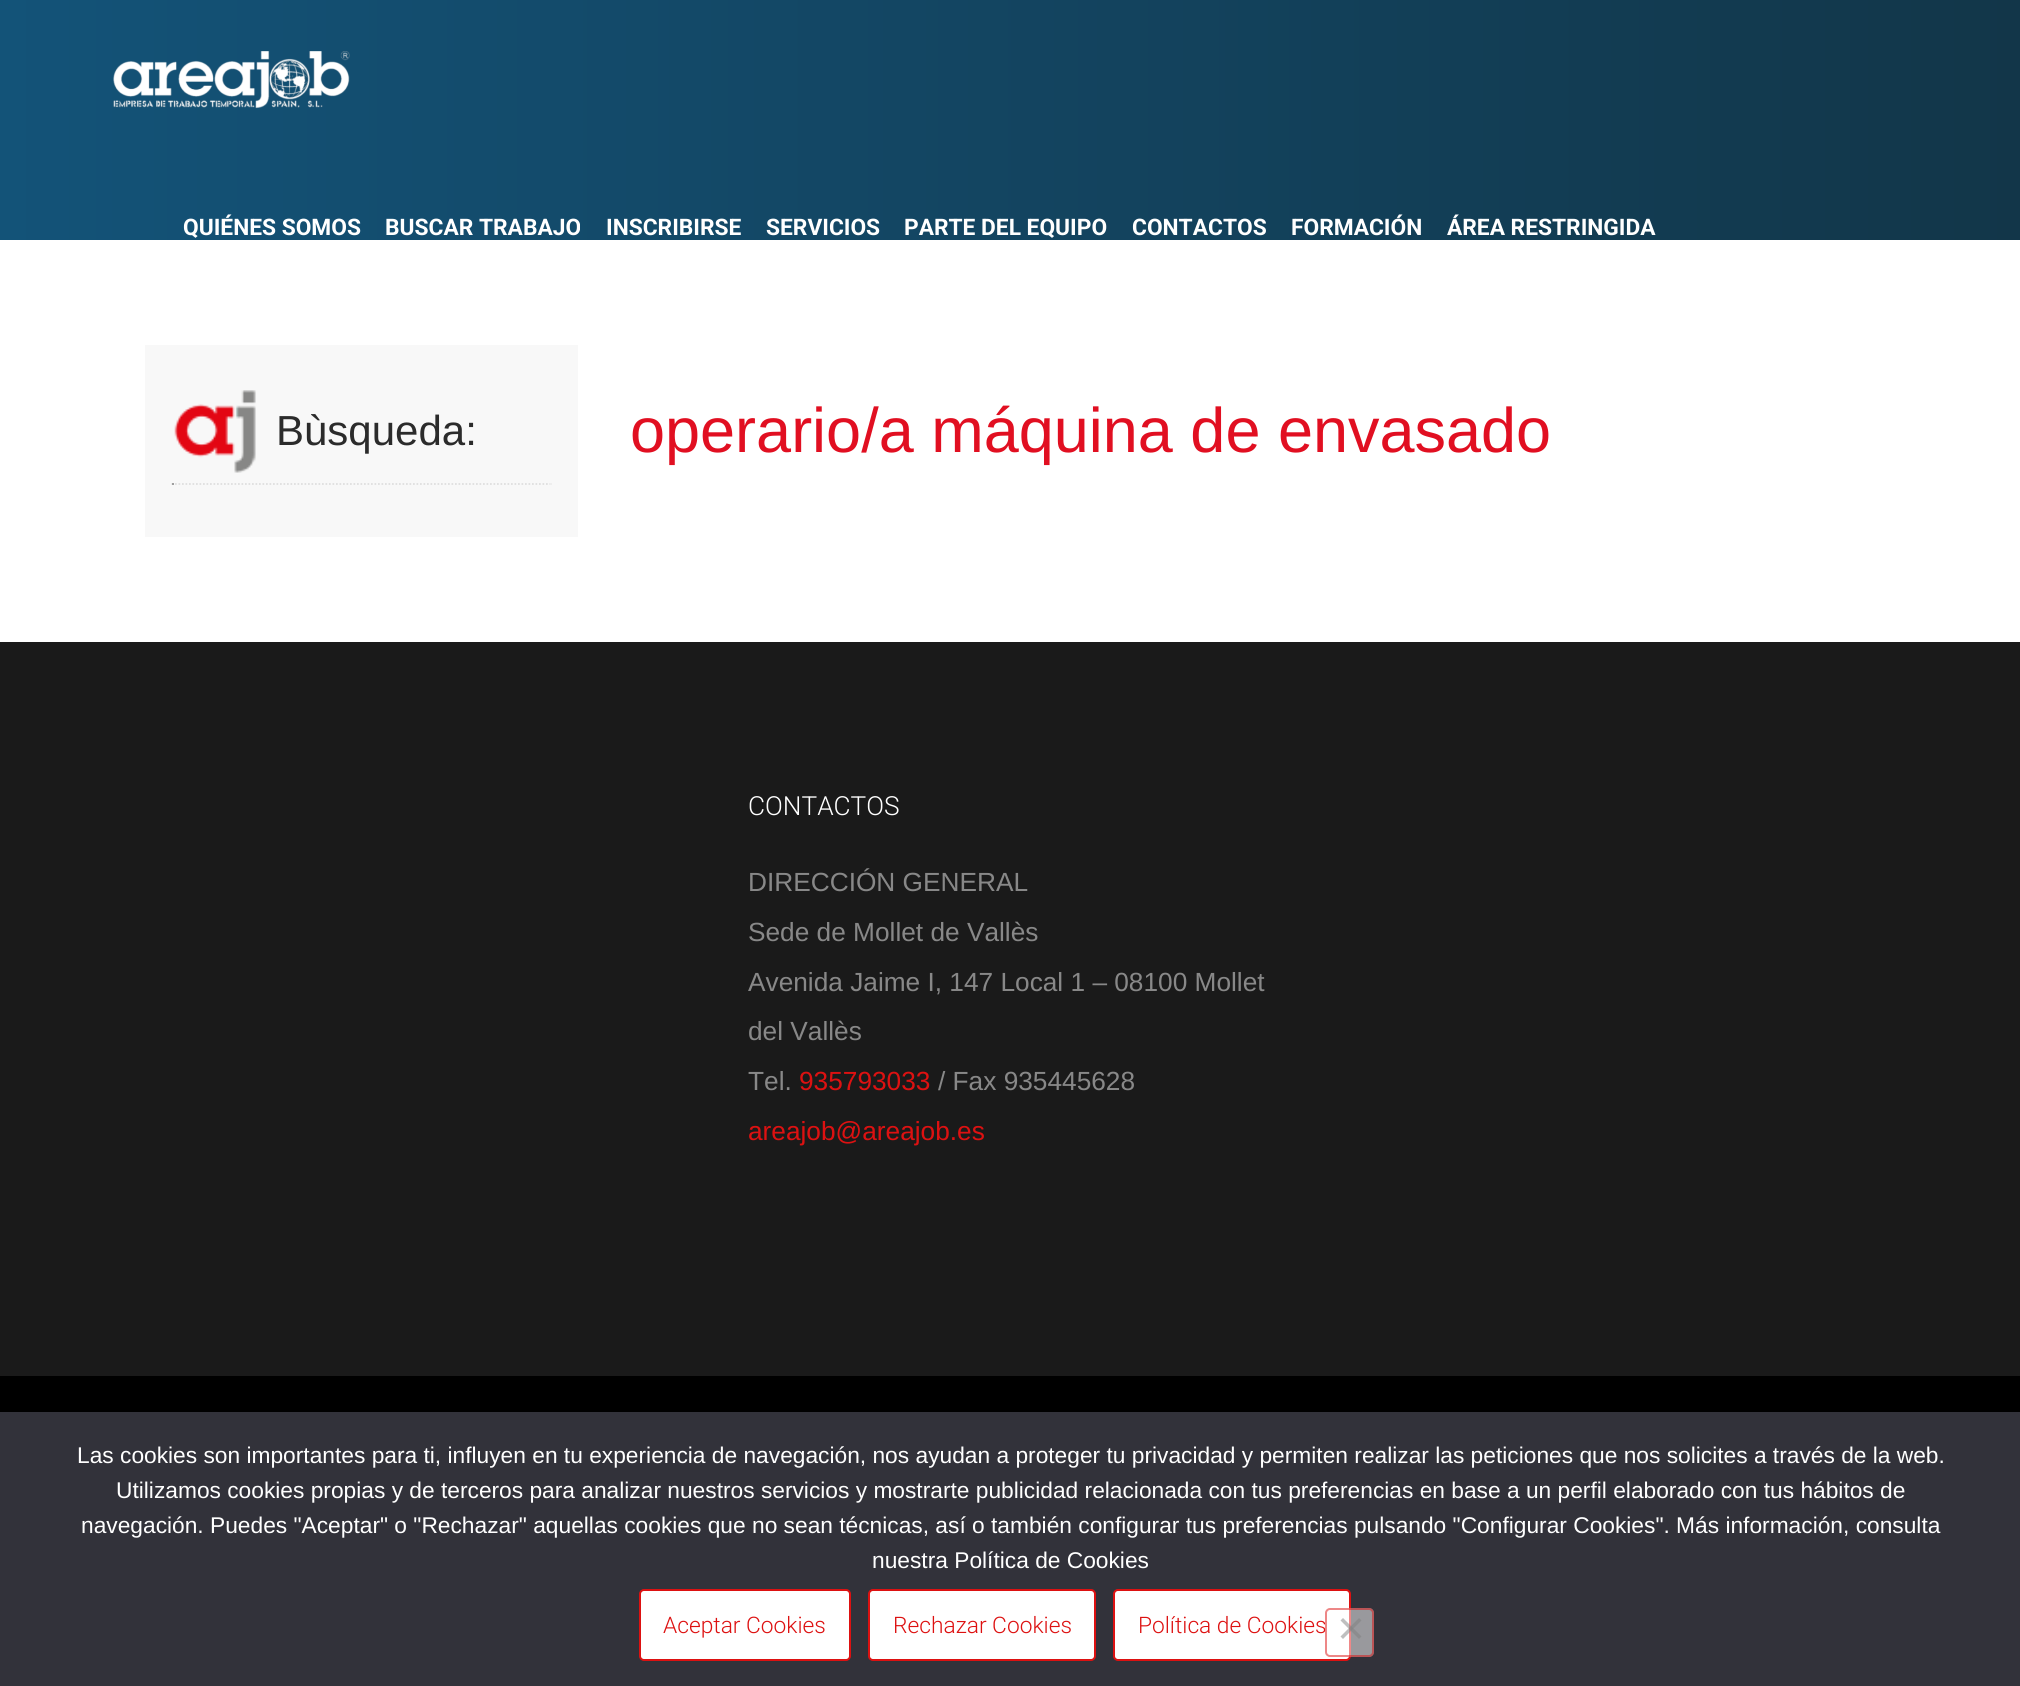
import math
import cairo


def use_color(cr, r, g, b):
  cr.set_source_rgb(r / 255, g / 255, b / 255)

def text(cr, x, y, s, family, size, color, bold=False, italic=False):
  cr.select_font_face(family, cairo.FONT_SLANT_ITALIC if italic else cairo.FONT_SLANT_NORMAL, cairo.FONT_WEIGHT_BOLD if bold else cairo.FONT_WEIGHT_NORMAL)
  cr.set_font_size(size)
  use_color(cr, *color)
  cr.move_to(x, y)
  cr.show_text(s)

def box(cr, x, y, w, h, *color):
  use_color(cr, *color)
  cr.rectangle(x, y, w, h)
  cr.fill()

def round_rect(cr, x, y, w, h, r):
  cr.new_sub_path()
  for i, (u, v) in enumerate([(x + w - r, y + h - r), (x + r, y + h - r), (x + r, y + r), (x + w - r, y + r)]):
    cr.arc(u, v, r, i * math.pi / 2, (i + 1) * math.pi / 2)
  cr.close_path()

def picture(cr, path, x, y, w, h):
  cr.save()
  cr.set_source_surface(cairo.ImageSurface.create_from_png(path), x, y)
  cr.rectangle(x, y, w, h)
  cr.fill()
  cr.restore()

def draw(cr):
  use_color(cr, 255, 255, 255)
  cr.paint()
  gradient = cairo.LinearGradient(0, 120, 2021, 120)
  gradient.add_color_stop_rgba(0, 0.075, 0.325, 0.471, 1)
  gradient.add_color_stop_rgba(1, 0.071, 0.212, 0.286, 1)
  cr.set_source(gradient)
  cr.rectangle(0, 0, 2020, 240)
  cr.fill()
  picture(cr, "img_01.png", 113, 51, 237, 58)
  box(cr, 145, 345, 433, 192, 248, 248, 248)
  picture(cr, "img_02.png", 174, 390, 82, 83)
  cr.new_path()
  cr.move_to(171.5, 484)
  cr.line_to(551, 484)
  use_color(cr, 223, 223, 223)
  cr.set_line_width(1.8)
  cr.set_dash([1.75, 1.75])
  cr.stroke()
  box(cr, 550, 483, 2, 2, 238, 238, 238)
  box(cr, 172, 483, 2, 2, 159, 159, 159)
  box(cr, 0, 642, 2020, 734, 26, 26, 26)
  box(cr, 0, 1376, 2020, 36, 0, 0, 0)
  box(cr, 0, 1412, 2020, 274, 50, 50, 58)
  use_color(cr, 255, 255, 255)
  round_rect(cr, 640, 1590, 210, 70, 4)
  cr.fill_preserve()
  use_color(cr, 221, 17, 17)
  cr.set_line_width(2)
  cr.set_dash([])
  cr.stroke()
  use_color(cr, 255, 255, 255)
  round_rect(cr, 869, 1590, 226, 70, 4)
  cr.fill_preserve()
  use_color(cr, 221, 17, 17)
  cr.stroke()
  use_color(cr, 255, 255, 255)
  round_rect(cr, 1114, 1590, 236, 70, 4)
  cr.fill_preserve()
  use_color(cr, 221, 17, 17)
  cr.stroke()
  text(cr, 183, 235, "QUIÉNES SOMOS", "Roboto", 22.75, (255, 255, 255), bold=True)
  text(cr, 385, 235, "BUSCAR TRABAJO", "Roboto", 22.75, (255, 255, 255), bold=True)
  text(cr, 606, 235, "INSCRIBIRSE", "Roboto", 22.75, (255, 255, 255), bold=True)
  text(cr, 766, 235, "SERVICIOS", "Roboto", 22.75, (255, 255, 255), bold=True)
  text(cr, 904, 235, "PARTE DEL EQUIPO", "Roboto", 22.75, (255, 255, 255), bold=True)
  text(cr, 1132, 235, "CONTACTOS", "Roboto", 22.75, (255, 255, 255), bold=True)
  text(cr, 1291, 235, "FORMACIÓN", "Roboto", 22.75, (255, 255, 255), bold=True)
  text(cr, 1447, 235, "ÁREA RESTRINGIDA", "Roboto", 22.75, (255, 255, 255), bold=True)
  text(cr, 276, 445, "Bùsqueda:", "Liberation Sans", 42, (43, 43, 43))
  text(cr, 630, 452, "operario/a máquina de envasado", "Liberation Sans", 63, (225, 15, 33))
  text(cr, 748, 815, "CONTACTOS", "Roboto Light", 26.25, (255, 255, 255))
  text(cr, 748, 891, "DIRECCIÓN GENERAL", "Liberation Sans", 26.25, (136, 136, 136))
  text(cr, 748, 941, "Sede de Mollet de Vallès", "Liberation Sans", 26.25, (136, 136, 136))
  text(cr, 748, 991, "Avenida Jaime I, 147 Local 1 – 08100 Mollet", "Liberation Sans", 26.25, (136, 136, 136))
  text(cr, 748, 1040, "del Vallès", "Liberation Sans", 26.25, (136, 136, 136))
  text(cr, 748, 1090, "Tel.", "Liberation Sans", 26.25, (136, 136, 136))
  text(cr, 799, 1090, "935793033", "Liberation Sans", 26.25, (221, 17, 17))
  text(cr, 938, 1090, "/ Fax 935445628", "Liberation Sans", 26.25, (136, 136, 136))
  text(cr, 748, 1140, "areajob@areajob.es", "Liberation Sans", 26.25, (221, 17, 17))
  text(cr, 77, 1463, "Las cookies son importantes para ti, influyen en tu experiencia de navegación, nos ayudan a proteger tu privacidad y permiten realizar las peticiones que nos solicites a través de la web.", "Liberation Sans", 22.75, (255, 255, 255))
  text(cr, 116, 1498, "Utilizamos cookies propias y de terceros para analizar nuestros servicios y mostrarte publicidad relacionada con tus preferencias en base a un perfil elaborado con tus hábitos de", "Liberation Sans", 22.75, (255, 255, 255))
  text(cr, 81, 1533, "navegación. Puedes \"Aceptar\" o \"Rechazar\" aquellas cookies que no sean técnicas, así o también configurar tus preferencias pulsando \"Configurar Cookies\". Más información, consulta", "Liberation Sans", 22.75, (255, 255, 255))
  text(cr, 872, 1568, "nuestra Política de Cookies", "Liberation Sans", 22.75, (255, 255, 255))
  text(cr, 663, 1633, "Aceptar Cookies", "Roboto Light", 22.75, (221, 17, 17))
  text(cr, 893, 1633, "Rechazar Cookies", "Roboto Light", 22.75, (221, 17, 17))
  text(cr, 1138, 1633, "Política de Cookies", "Roboto Light", 22.75, (221, 17, 17))
  cr.set_source_rgba(1, 1, 1, 0.5)
  round_rect(cr, 1325, 1608, 49, 49, 5)
  cr.fill()
  round_rect(cr, 1326, 1609, 47, 47, 4)
  cr.set_source_rgba(0.867, 0.067, 0.067, 0.5)
  cr.stroke()
  cr.set_source_rgba(0.502, 0.502, 0.502, 0.5)
  cr.new_path()
  cr.move_to(1359, 1618)
  cr.line_to(1361.5, 1620.5)
  cr.line_to(1343, 1639)
  cr.line_to(1340.5, 1636.5)
  cr.close_path()
  cr.fill()
  cr.new_path()
  cr.move_to(1340.5, 1620.5)
  cr.line_to(1343, 1618)
  cr.line_to(1361.5, 1636.5)
  cr.line_to(1359, 1639)
  cr.close_path()
  cr.fill()


surface = cairo.ImageSurface(cairo.FORMAT_RGB24, 2020, 1686)
cr = cairo.Context(surface)
options = cairo.FontOptions()
options.set_hint_metrics(cairo.HINT_METRICS_OFF)
options.set_hint_style(cairo.HINT_STYLE_NONE)
cr.set_font_options(options)
cr.set_miter_limit(4)
draw(cr)
surface.write_to_png("out.png")
